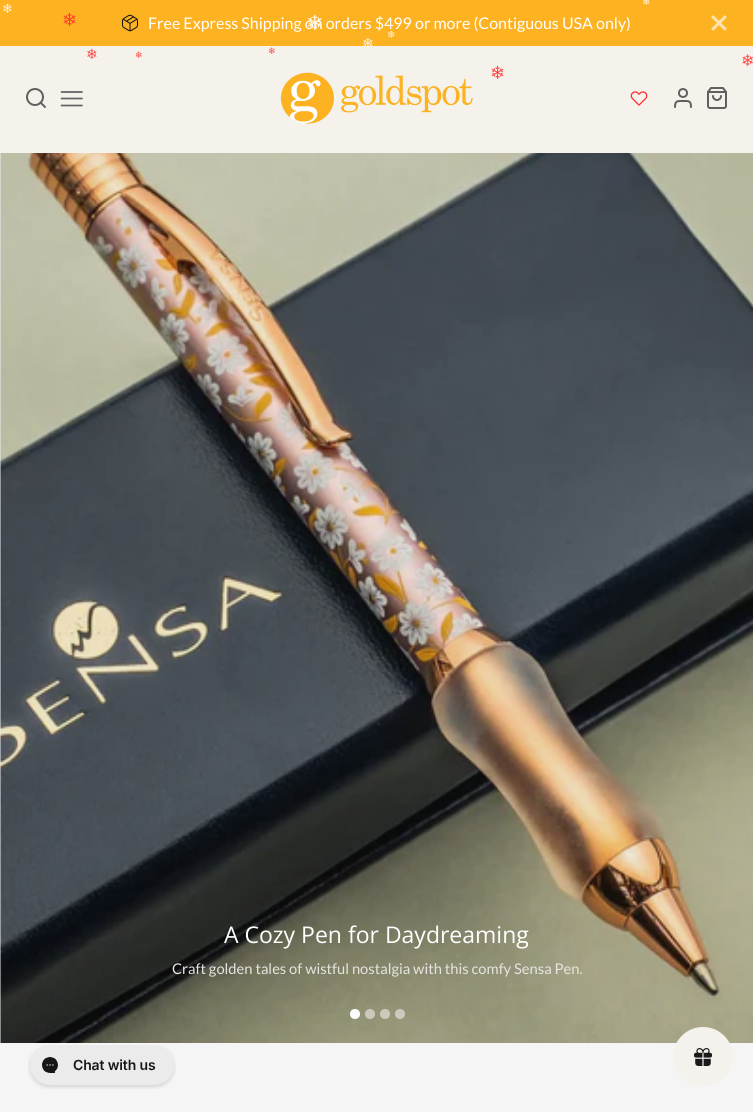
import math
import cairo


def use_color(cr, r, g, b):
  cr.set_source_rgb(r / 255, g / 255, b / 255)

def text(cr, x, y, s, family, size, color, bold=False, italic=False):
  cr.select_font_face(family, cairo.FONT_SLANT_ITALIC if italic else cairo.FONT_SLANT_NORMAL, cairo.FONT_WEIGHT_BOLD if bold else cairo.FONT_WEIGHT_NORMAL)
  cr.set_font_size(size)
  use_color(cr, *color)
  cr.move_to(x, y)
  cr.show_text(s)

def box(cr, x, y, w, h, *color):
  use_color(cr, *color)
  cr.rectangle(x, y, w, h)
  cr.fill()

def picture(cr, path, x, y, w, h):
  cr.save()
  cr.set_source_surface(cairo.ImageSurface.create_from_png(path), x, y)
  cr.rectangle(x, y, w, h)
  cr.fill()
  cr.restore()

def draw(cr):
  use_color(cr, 239, 239, 239)
  cr.paint()
  box(cr, 0, 0, 753, 46, 253, 178, 33)
  picture(cr, "img_01.png", 122, 14, 16, 18)
  cr.new_path()
  cr.move_to(725, 17)
  cr.line_to(713, 29)
  cr.move_to(713, 17)
  cr.line_to(725, 29)
  use_color(cr, 254, 227, 175)
  cr.set_line_width(3)
  cr.set_line_cap(cairo.LINE_CAP_ROUND)
  cr.set_line_join(cairo.LINE_JOIN_ROUND)
  cr.stroke()
  box(cr, 0, 46, 753, 107, 244, 242, 235)
  cr.arc(35, 97, 8, 0, 2 * math.pi)
  use_color(cr, 96, 96, 96)
  cr.set_line_width(2)
  cr.set_line_cap(cairo.LINE_CAP_BUTT)
  cr.set_line_join(cairo.LINE_JOIN_MITER)
  cr.stroke()
  cr.new_path()
  cr.move_to(45, 107)
  cr.line_to(40.5, 102.5)
  cr.set_line_cap(cairo.LINE_CAP_ROUND)
  cr.set_line_join(cairo.LINE_JOIN_ROUND)
  cr.stroke()
  cr.new_path()
  cr.move_to(61.5, 98.5)
  cr.line_to(82, 98.5)
  cr.move_to(61.5, 92)
  cr.line_to(82, 92)
  cr.move_to(61.5, 105.5)
  cr.line_to(82, 105.5)
  cr.set_line_width(1.7)
  cr.stroke()
  picture(cr, "img_02.png", 280, 72, 193, 52)
  picture(cr, "img_03.png", 630, 91, 18, 15)
  cr.arc(683, 93, 4, 0, 2 * math.pi)
  cr.set_line_width(2)
  cr.set_line_cap(cairo.LINE_CAP_BUTT)
  cr.set_line_join(cairo.LINE_JOIN_MITER)
  cr.stroke()
  cr.new_path()
  cr.move_to(691, 107)
  cr.curve_to(691, 100.5, 688.5, 101, 683, 101)
  cr.curve_to(677.5, 101, 675, 100.5, 675, 107)
  cr.set_line_cap(cairo.LINE_CAP_ROUND)
  cr.set_line_join(cairo.LINE_JOIN_ROUND)
  cr.stroke()
  picture(cr, "img_04.png", 707, 87, 20, 22)
  picture(cr, "img_05.png", 0, 153, 753, 890)
  use_color(cr, 255, 255, 255)
  cr.arc(355, 1014, 5, 0, 2 * math.pi)
  cr.fill()
  cr.set_source_rgba(1, 1, 1, 0.5)
  cr.arc(370, 1014, 5, 0, 2 * math.pi)
  cr.fill()
  cr.arc(385, 1014, 5, 0, 2 * math.pi)
  cr.fill()
  cr.arc(400, 1014, 5, 0, 2 * math.pi)
  cr.fill()
  box(cr, 0, 1043, 753, 69, 245, 245, 245)
  picture(cr, "img_06.png", 28, 1045, 148, 44)
  use_color(cr, 244, 242, 236)
  cr.arc(703, 1057, 30, 0, 2 * math.pi)
  cr.fill()
  picture(cr, "img_07.png", 694, 1048, 18, 18)
  text(cr, 642, 5, "❄", "DejaVu Sans", 10, (255, 243, 222))
  text(cr, 2, 13, "❄", "DejaVu Sans", 13, (255, 243, 222))
  text(cr, 62, 26, "❄", "DejaVu Sans", 18, (255, 63, 42))
  text(cr, 387, 38, "❄", "DejaVu Sans", 10, (255, 243, 222))
  text(cr, 362, 48, "❄", "DejaVu Sans", 14, (255, 243, 222))
  text(cr, 86, 59, "❄", "DejaVu Sans", 14, (253, 73, 72))
  text(cr, 135, 58, "❄", "DejaVu Sans", 9, (253, 73, 72))
  text(cr, 268, 54, "❄", "DejaVu Sans", 9, (253, 73, 72))
  text(cr, 741, 66, "❄", "DejaVu Sans", 16, (253, 73, 72))
  text(cr, 490, 79, "❄", "DejaVu Sans", 18, (253, 73, 72))
  text(cr, 148, 29, "Free Express Shipping on orders $499 or more (Contiguous USA only)", "Lato", 16, (255, 255, 255))
  text(cr, 306, 30, "❄", "DejaVu Sans", 21, (255, 246, 229))
  text(cr, 224, 943, "A Cozy Pen for Daydreaming", "Open Sans", 23, (255, 255, 255))
  text(cr, 172, 974, "Craft golden tales of wistful nostalgia with this comfy Sensa Pen.", "Lato", 14.75, (229, 229, 224))


surface = cairo.ImageSurface(cairo.FORMAT_RGB24, 753, 1112)
cr = cairo.Context(surface)
options = cairo.FontOptions()
options.set_hint_metrics(cairo.HINT_METRICS_OFF)
options.set_hint_style(cairo.HINT_STYLE_NONE)
cr.set_font_options(options)
cr.set_miter_limit(4)
draw(cr)
surface.write_to_png("out.png")
